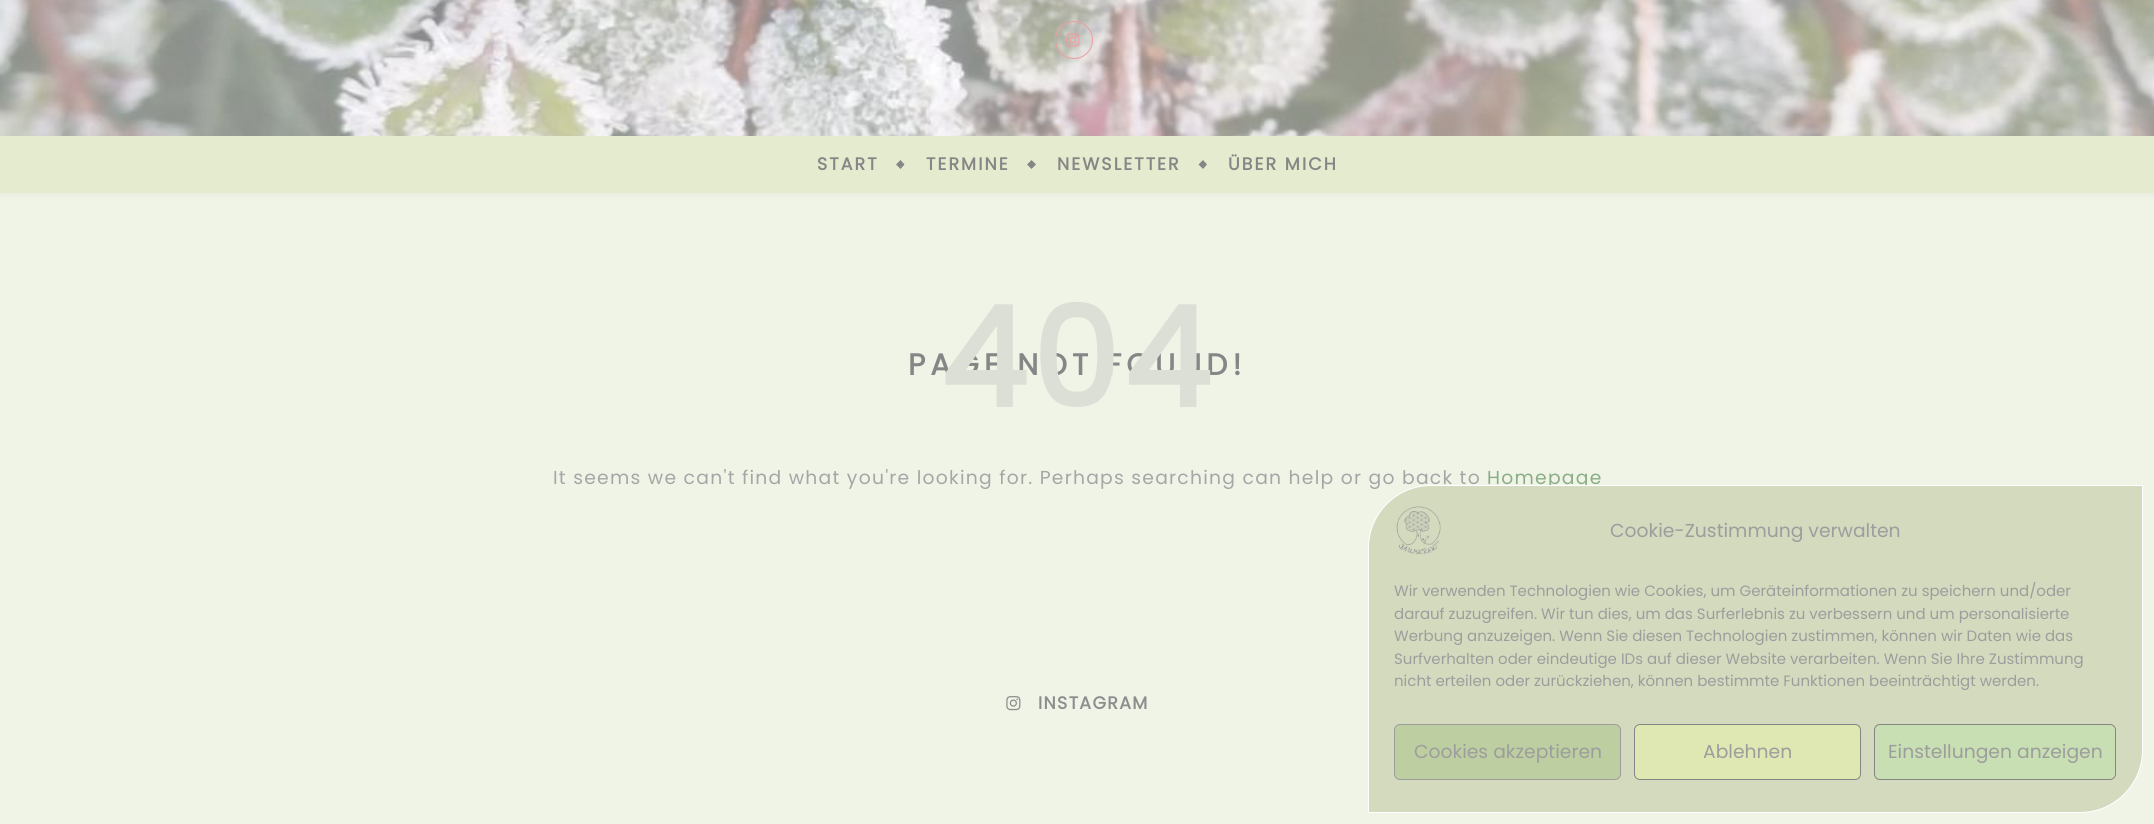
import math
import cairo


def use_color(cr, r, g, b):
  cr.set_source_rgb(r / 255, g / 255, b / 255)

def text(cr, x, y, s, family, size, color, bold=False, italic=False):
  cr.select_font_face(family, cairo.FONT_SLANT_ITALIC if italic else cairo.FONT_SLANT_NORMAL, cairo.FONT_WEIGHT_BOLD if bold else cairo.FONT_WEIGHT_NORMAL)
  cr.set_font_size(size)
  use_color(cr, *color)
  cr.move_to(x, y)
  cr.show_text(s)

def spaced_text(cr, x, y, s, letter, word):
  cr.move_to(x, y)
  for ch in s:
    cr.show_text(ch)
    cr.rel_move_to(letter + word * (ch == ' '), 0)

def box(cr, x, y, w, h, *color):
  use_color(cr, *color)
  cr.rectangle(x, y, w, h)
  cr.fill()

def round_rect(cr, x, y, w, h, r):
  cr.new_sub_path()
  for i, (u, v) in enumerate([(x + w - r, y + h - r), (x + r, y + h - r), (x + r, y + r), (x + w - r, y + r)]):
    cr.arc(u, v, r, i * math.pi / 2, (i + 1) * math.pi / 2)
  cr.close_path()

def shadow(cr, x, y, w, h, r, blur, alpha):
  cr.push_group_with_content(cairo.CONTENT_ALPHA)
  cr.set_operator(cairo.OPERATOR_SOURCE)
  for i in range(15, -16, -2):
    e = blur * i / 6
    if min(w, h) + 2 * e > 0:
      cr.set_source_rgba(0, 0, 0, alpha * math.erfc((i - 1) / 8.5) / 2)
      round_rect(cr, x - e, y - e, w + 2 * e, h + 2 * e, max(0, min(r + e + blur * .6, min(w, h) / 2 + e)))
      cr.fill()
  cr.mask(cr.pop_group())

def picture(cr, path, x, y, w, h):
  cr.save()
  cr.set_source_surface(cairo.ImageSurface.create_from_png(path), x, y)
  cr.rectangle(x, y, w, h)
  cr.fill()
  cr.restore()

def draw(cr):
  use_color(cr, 239, 244, 231)
  cr.paint()
  picture(cr, "img_01.png", 0, 0, 2154, 136)
  cr.arc(1074, 40, 18.5, 0, 2 * math.pi)
  use_color(cr, 239, 157, 157)
  cr.set_line_width(1)
  cr.stroke()
  picture(cr, "img_02.png", 1066, 33, 14, 14)
  use_color(cr, 133, 133, 133)
  shadow(cr, 0, 138, 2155, 56, 0, 3, 0.1)
  box(cr, 0, 136, 2154, 57, 229, 235, 206)
  use_color(cr, 133, 133, 133)
  cr.new_path()
  cr.move_to(896, 164.5)
  cr.line_to(900.5, 160)
  cr.line_to(904.5, 164.5)
  cr.line_to(900.5, 169)
  cr.close_path()
  cr.fill()
  cr.new_path()
  cr.move_to(1027, 164.5)
  cr.line_to(1031.5, 160)
  cr.line_to(1036, 164.5)
  cr.line_to(1031.5, 169)
  cr.close_path()
  cr.fill()
  cr.new_path()
  cr.move_to(1198.5, 164.5)
  cr.line_to(1203, 160)
  cr.line_to(1207, 164.5)
  cr.line_to(1203, 169)
  cr.close_path()
  cr.fill()
  picture(cr, "img_03.png", 1006, 696, 15, 15)
  cr.select_font_face("Poppins", cairo.FONT_SLANT_NORMAL, cairo.FONT_WEIGHT_BOLD)
  cr.set_font_size(17.5)
  use_color(cr, 134, 134, 134)
  spaced_text(cr, 817, 170, "START", 2, 0)
  spaced_text(cr, 926, 170, "TERMINE", 2, 0)
  spaced_text(cr, 1057, 170, "NEWSLETTER", 2, 0)
  spaced_text(cr, 1228, 170, "ÜBER MICH", 2, 0)
  cr.set_font_size(30)
  spaced_text(cr, 908, 375, "PAGE NOT FOUND!", 5, 0)
  cr.set_font_size(138)
  use_color(cr, 219, 223, 213)
  spaced_text(cr, 940, 407, "404", 5, 0)
  cr.select_font_face("Poppins")
  cr.set_font_size(18.75)
  use_color(cr, 166, 166, 166)
  spaced_text(cr, 553, 484, "It seems we can't find what you're looking for. Perhaps searching can help or go back to", 1.25, 0)
  use_color(cr, 138, 173, 133)
  spaced_text(cr, 1487, 484, "Homepage", 1.25, 0)
  cr.select_font_face("Poppins", cairo.FONT_SLANT_NORMAL, cairo.FONT_WEIGHT_BOLD)
  cr.set_font_size(17.5)
  use_color(cr, 141, 141, 141)
  spaced_text(cr, 1038, 709, "INSTAGRAM", 1.25, 0)
  use_color(cr, 211, 218, 190)
  cr.new_path()
  cr.move_to(1431, 485.5)
  cr.line_to(2142.5, 485.5)
  cr.line_to(2142.5, 750)
  cr.curve_to(2142.5, 784.5, 2114.5, 812.5, 2080, 812.5)
  cr.line_to(1368.5, 812.5)
  cr.line_to(1368.5, 548)
  cr.curve_to(1368.5, 513.5, 1396.5, 485.5, 1431, 485.5)
  cr.close_path()
  cr.fill_preserve()
  use_color(cr, 255, 255, 255)
  cr.stroke()
  picture(cr, "img_04.png", 1396, 506, 45, 49)
  text(cr, 1610, 537, "Cookie-Zustimmung verwalten", "Poppins", 18.75, (157, 157, 157))
  text(cr, 1394, 596, "Wir verwenden Technologien wie Cookies, um Geräteinformationen zu speichern und/oder", "Poppins", 15, (157, 157, 157))
  text(cr, 1394, 619, "darauf zuzugreifen. Wir tun dies, um das Surferlebnis zu verbessern und um personalisierte", "Poppins", 15, (157, 157, 157))
  text(cr, 1394, 641, "Werbung anzuzeigen. Wenn Sie diesen Technologien zustimmen, können wir Daten wie das", "Poppins", 15, (157, 157, 157))
  text(cr, 1394, 664, "Surfverhalten oder eindeutige IDs auf dieser Website verarbeiten. Wenn Sie Ihre Zustimmung", "Poppins", 15, (157, 157, 157))
  text(cr, 1394, 686, "nicht erteilen oder zurückziehen, können bestimmte Funktionen beeinträchtigt werden.", "Poppins", 15, (157, 157, 157))
  use_color(cr, 189, 206, 161)
  round_rect(cr, 1394.5, 724.5, 226, 55, 5.5)
  cr.fill_preserve()
  use_color(cr, 157, 157, 157)
  cr.stroke()
  text(cr, 1414, 758, "Cookies akzeptieren", "Poppins", 18.75, (157, 157, 157))
  use_color(cr, 223, 231, 178)
  round_rect(cr, 1634.5, 724.5, 226, 55, 5.5)
  cr.fill_preserve()
  use_color(cr, 133, 133, 133)
  cr.stroke()
  text(cr, 1703, 758, "Ablehnen", "Poppins", 18.75, (157, 157, 157))
  use_color(cr, 200, 222, 179)
  round_rect(cr, 1874.5, 724.5, 241, 55, 5.5)
  cr.fill_preserve()
  use_color(cr, 133, 133, 133)
  cr.stroke()
  text(cr, 1888, 758, "Einstellungen anzeigen", "Poppins", 18.75, (157, 157, 157))


surface = cairo.ImageSurface(cairo.FORMAT_RGB24, 2154, 824)
cr = cairo.Context(surface)
options = cairo.FontOptions()
options.set_hint_metrics(cairo.HINT_METRICS_OFF)
options.set_hint_style(cairo.HINT_STYLE_NONE)
cr.set_font_options(options)
cr.set_miter_limit(4)
draw(cr)
surface.write_to_png("out.png")
